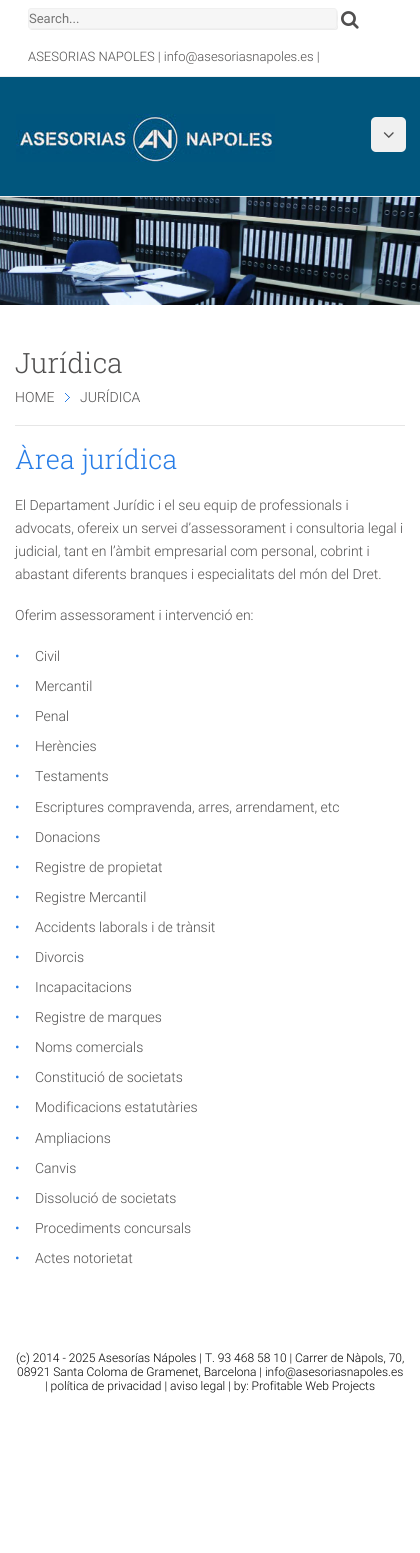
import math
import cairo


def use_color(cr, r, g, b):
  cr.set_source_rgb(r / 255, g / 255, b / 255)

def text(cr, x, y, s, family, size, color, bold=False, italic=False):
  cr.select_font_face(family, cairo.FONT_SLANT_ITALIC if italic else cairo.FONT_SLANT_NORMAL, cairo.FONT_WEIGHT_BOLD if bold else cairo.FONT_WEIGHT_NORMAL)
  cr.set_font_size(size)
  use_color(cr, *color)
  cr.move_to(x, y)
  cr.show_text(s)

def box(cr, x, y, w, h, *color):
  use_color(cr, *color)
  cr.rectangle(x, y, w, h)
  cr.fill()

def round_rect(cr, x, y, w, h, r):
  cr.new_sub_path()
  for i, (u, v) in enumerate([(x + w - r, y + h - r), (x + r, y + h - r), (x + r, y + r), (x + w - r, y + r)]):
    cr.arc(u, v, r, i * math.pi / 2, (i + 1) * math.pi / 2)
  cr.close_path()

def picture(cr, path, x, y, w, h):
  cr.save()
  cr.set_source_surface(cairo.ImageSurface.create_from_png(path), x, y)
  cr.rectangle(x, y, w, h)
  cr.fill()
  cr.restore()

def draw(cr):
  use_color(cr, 255, 255, 255)
  cr.paint()
  box(cr, 0, 76, 420, 1, 240, 240, 240)
  use_color(cr, 236, 236, 236)
  cr.new_path()
  cr.move_to(29, 29)
  cr.curve_to(30, 29, 31, 30, 32, 30)
  cr.line_to(335, 30)
  cr.curve_to(337, 30, 338, 29, 338, 27)
  cr.line_to(338, 12)
  cr.curve_to(338, 11, 337, 10, 337, 9)
  cr.curve_to(338, 12, 337, 16, 337, 18)
  cr.curve_to(337, 21, 339, 29, 334, 29)
  cr.close_path()
  cr.fill()
  use_color(cr, 246, 246, 246)
  round_rect(cr, 28.5, 8.5, 308, 20, 2.5)
  cr.fill_preserve()
  use_color(cr, 240, 240, 240)
  cr.set_line_width(1)
  cr.stroke()
  picture(cr, "img_01.png", 341, 11, 18, 18)
  box(cr, 0, 77, 420, 119, 1, 86, 125)
  box(cr, 0, 196, 420, 1, 240, 240, 240)
  picture(cr, "img_02.png", 16, 114, 259, 48)
  round_rect(cr, 371, 117, 35, 35, 5)
  cr.fill()
  picture(cr, "img_03.png", 383, 132, 11, 6)
  picture(cr, "img_04.png", 0, 197, 420, 108)
  box(cr, 15, 425, 390, 1, 230, 230, 230)
  picture(cr, "img_05.png", 65, 393, 5, 9)
  text(cr, 29, 23, "Search...", "Roboto", 13, (117, 117, 117))
  text(cr, 28, 61, "ASESORIAS NAPOLES | info@asesoriasnapoles.es |", "Roboto Light", 13, (80, 79, 79))
  text(cr, 15, 373, "Jurídica", "Roboto Slab Light", 28, (80, 79, 79))
  text(cr, 15, 402, "HOME", "Roboto Light", 14, (80, 79, 79))
  text(cr, 80, 402, "JURÍDICA", "Roboto Light", 14, (80, 79, 79))
  text(cr, 15, 469, "Àrea jurídica", "Roboto Slab Light", 27, (40, 125, 231))
  text(cr, 15, 510, "El Departament Jurídic i el seu equip de professionals i", "Roboto Light", 14, (80, 79, 79))
  text(cr, 15, 533, "advocats, ofereix un servei d’assessorament i consultoria legal i", "Roboto Light", 14, (80, 79, 79))
  text(cr, 15, 556, "judicial, tant en l’àmbit empresarial com personal, cobrint i", "Roboto Light", 14, (80, 79, 79))
  text(cr, 15, 579, "abastant diferents branques i especialitats del món del Dret.", "Roboto Light", 14, (80, 79, 79))
  text(cr, 15, 620, "Oferim assessorament i intervenció en:", "Roboto Light", 14, (80, 79, 79))
  text(cr, 15, 661, "•", "Roboto Light", 14, (40, 125, 231))
  text(cr, 35, 661, "Civil", "Roboto Light", 14, (80, 79, 79))
  text(cr, 15, 691, "•", "Roboto Light", 14, (40, 125, 231))
  text(cr, 35, 691, "Mercantil", "Roboto Light", 14, (80, 79, 79))
  text(cr, 15, 721, "•", "Roboto Light", 14, (40, 125, 231))
  text(cr, 35, 721, "Penal", "Roboto Light", 14, (80, 79, 79))
  text(cr, 15, 751, "•", "Roboto Light", 14, (40, 125, 231))
  text(cr, 35, 751, "Herències", "Roboto Light", 14, (80, 79, 79))
  text(cr, 15, 781, "•", "Roboto Light", 14, (40, 125, 231))
  text(cr, 35, 781, "Testaments", "Roboto Light", 14, (80, 79, 79))
  text(cr, 15, 812, "•", "Roboto Light", 14, (40, 125, 231))
  text(cr, 35, 812, "Escriptures compravenda, arres, arrendament, etc", "Roboto Light", 14, (80, 79, 79))
  text(cr, 15, 842, "•", "Roboto Light", 14, (40, 125, 231))
  text(cr, 35, 842, "Donacions", "Roboto Light", 14, (80, 79, 79))
  text(cr, 15, 872, "•", "Roboto Light", 14, (40, 125, 231))
  text(cr, 35, 872, "Registre de propietat", "Roboto Light", 14, (80, 79, 79))
  text(cr, 15, 902, "•", "Roboto Light", 14, (40, 125, 231))
  text(cr, 35, 902, "Registre Mercantil", "Roboto Light", 14, (80, 79, 79))
  text(cr, 15, 932, "•", "Roboto Light", 14, (40, 125, 231))
  text(cr, 35, 932, "Accidents laborals i de trànsit", "Roboto Light", 14, (80, 79, 79))
  text(cr, 15, 962, "•", "Roboto Light", 14, (40, 125, 231))
  text(cr, 35, 962, "Divorcis", "Roboto Light", 14, (80, 79, 79))
  text(cr, 15, 992, "•", "Roboto Light", 14, (40, 125, 231))
  text(cr, 35, 992, "Incapacitacions", "Roboto Light", 14, (80, 79, 79))
  text(cr, 15, 1022, "•", "Roboto Light", 14, (40, 125, 231))
  text(cr, 35, 1022, "Registre de marques", "Roboto Light", 14, (80, 79, 79))
  text(cr, 15, 1052, "•", "Roboto Light", 14, (40, 125, 231))
  text(cr, 35, 1052, "Noms comercials", "Roboto Light", 14, (80, 79, 79))
  text(cr, 15, 1082, "•", "Roboto Light", 14, (40, 125, 231))
  text(cr, 35, 1082, "Constitució de societats", "Roboto Light", 14, (80, 79, 79))
  text(cr, 15, 1112, "•", "Roboto Light", 14, (40, 125, 231))
  text(cr, 35, 1112, "Modificacions estatutàries", "Roboto Light", 14, (80, 79, 79))
  text(cr, 15, 1143, "•", "Roboto Light", 14, (40, 125, 231))
  text(cr, 35, 1143, "Ampliacions", "Roboto Light", 14, (80, 79, 79))
  text(cr, 15, 1173, "•", "Roboto Light", 14, (40, 125, 231))
  text(cr, 35, 1173, "Canvis", "Roboto Light", 14, (80, 79, 79))
  text(cr, 15, 1203, "•", "Roboto Light", 14, (40, 125, 231))
  text(cr, 35, 1203, "Dissolució de societats", "Roboto Light", 14, (80, 79, 79))
  text(cr, 15, 1233, "•", "Roboto Light", 14, (40, 125, 231))
  text(cr, 35, 1233, "Procediments concursals", "Roboto Light", 14, (80, 79, 79))
  text(cr, 15, 1263, "•", "Roboto Light", 14, (40, 125, 231))
  text(cr, 35, 1263, "Actes notorietat", "Roboto Light", 14, (80, 79, 79))
  text(cr, 16, 1362, "(c) 2014 - 2025 Asesorías Nápoles | T. 93 468 58 10 | Carrer de Nàpols, 70,", "Roboto Light", 12, (0, 0, 0))
  text(cr, 17, 1376, "08921 Santa Coloma de Gramenet, Barcelona | info@asesoriasnapoles.es", "Roboto Light", 12, (0, 0, 0))
  text(cr, 45, 1390, "| política de privacidad | aviso legal | by: Profitable Web Projects", "Roboto Light", 12, (0, 0, 0))


surface = cairo.ImageSurface(cairo.FORMAT_RGB24, 420, 1553)
cr = cairo.Context(surface)
options = cairo.FontOptions()
options.set_hint_metrics(cairo.HINT_METRICS_OFF)
options.set_hint_style(cairo.HINT_STYLE_NONE)
cr.set_font_options(options)
cr.set_miter_limit(4)
draw(cr)
surface.write_to_png("out.png")
